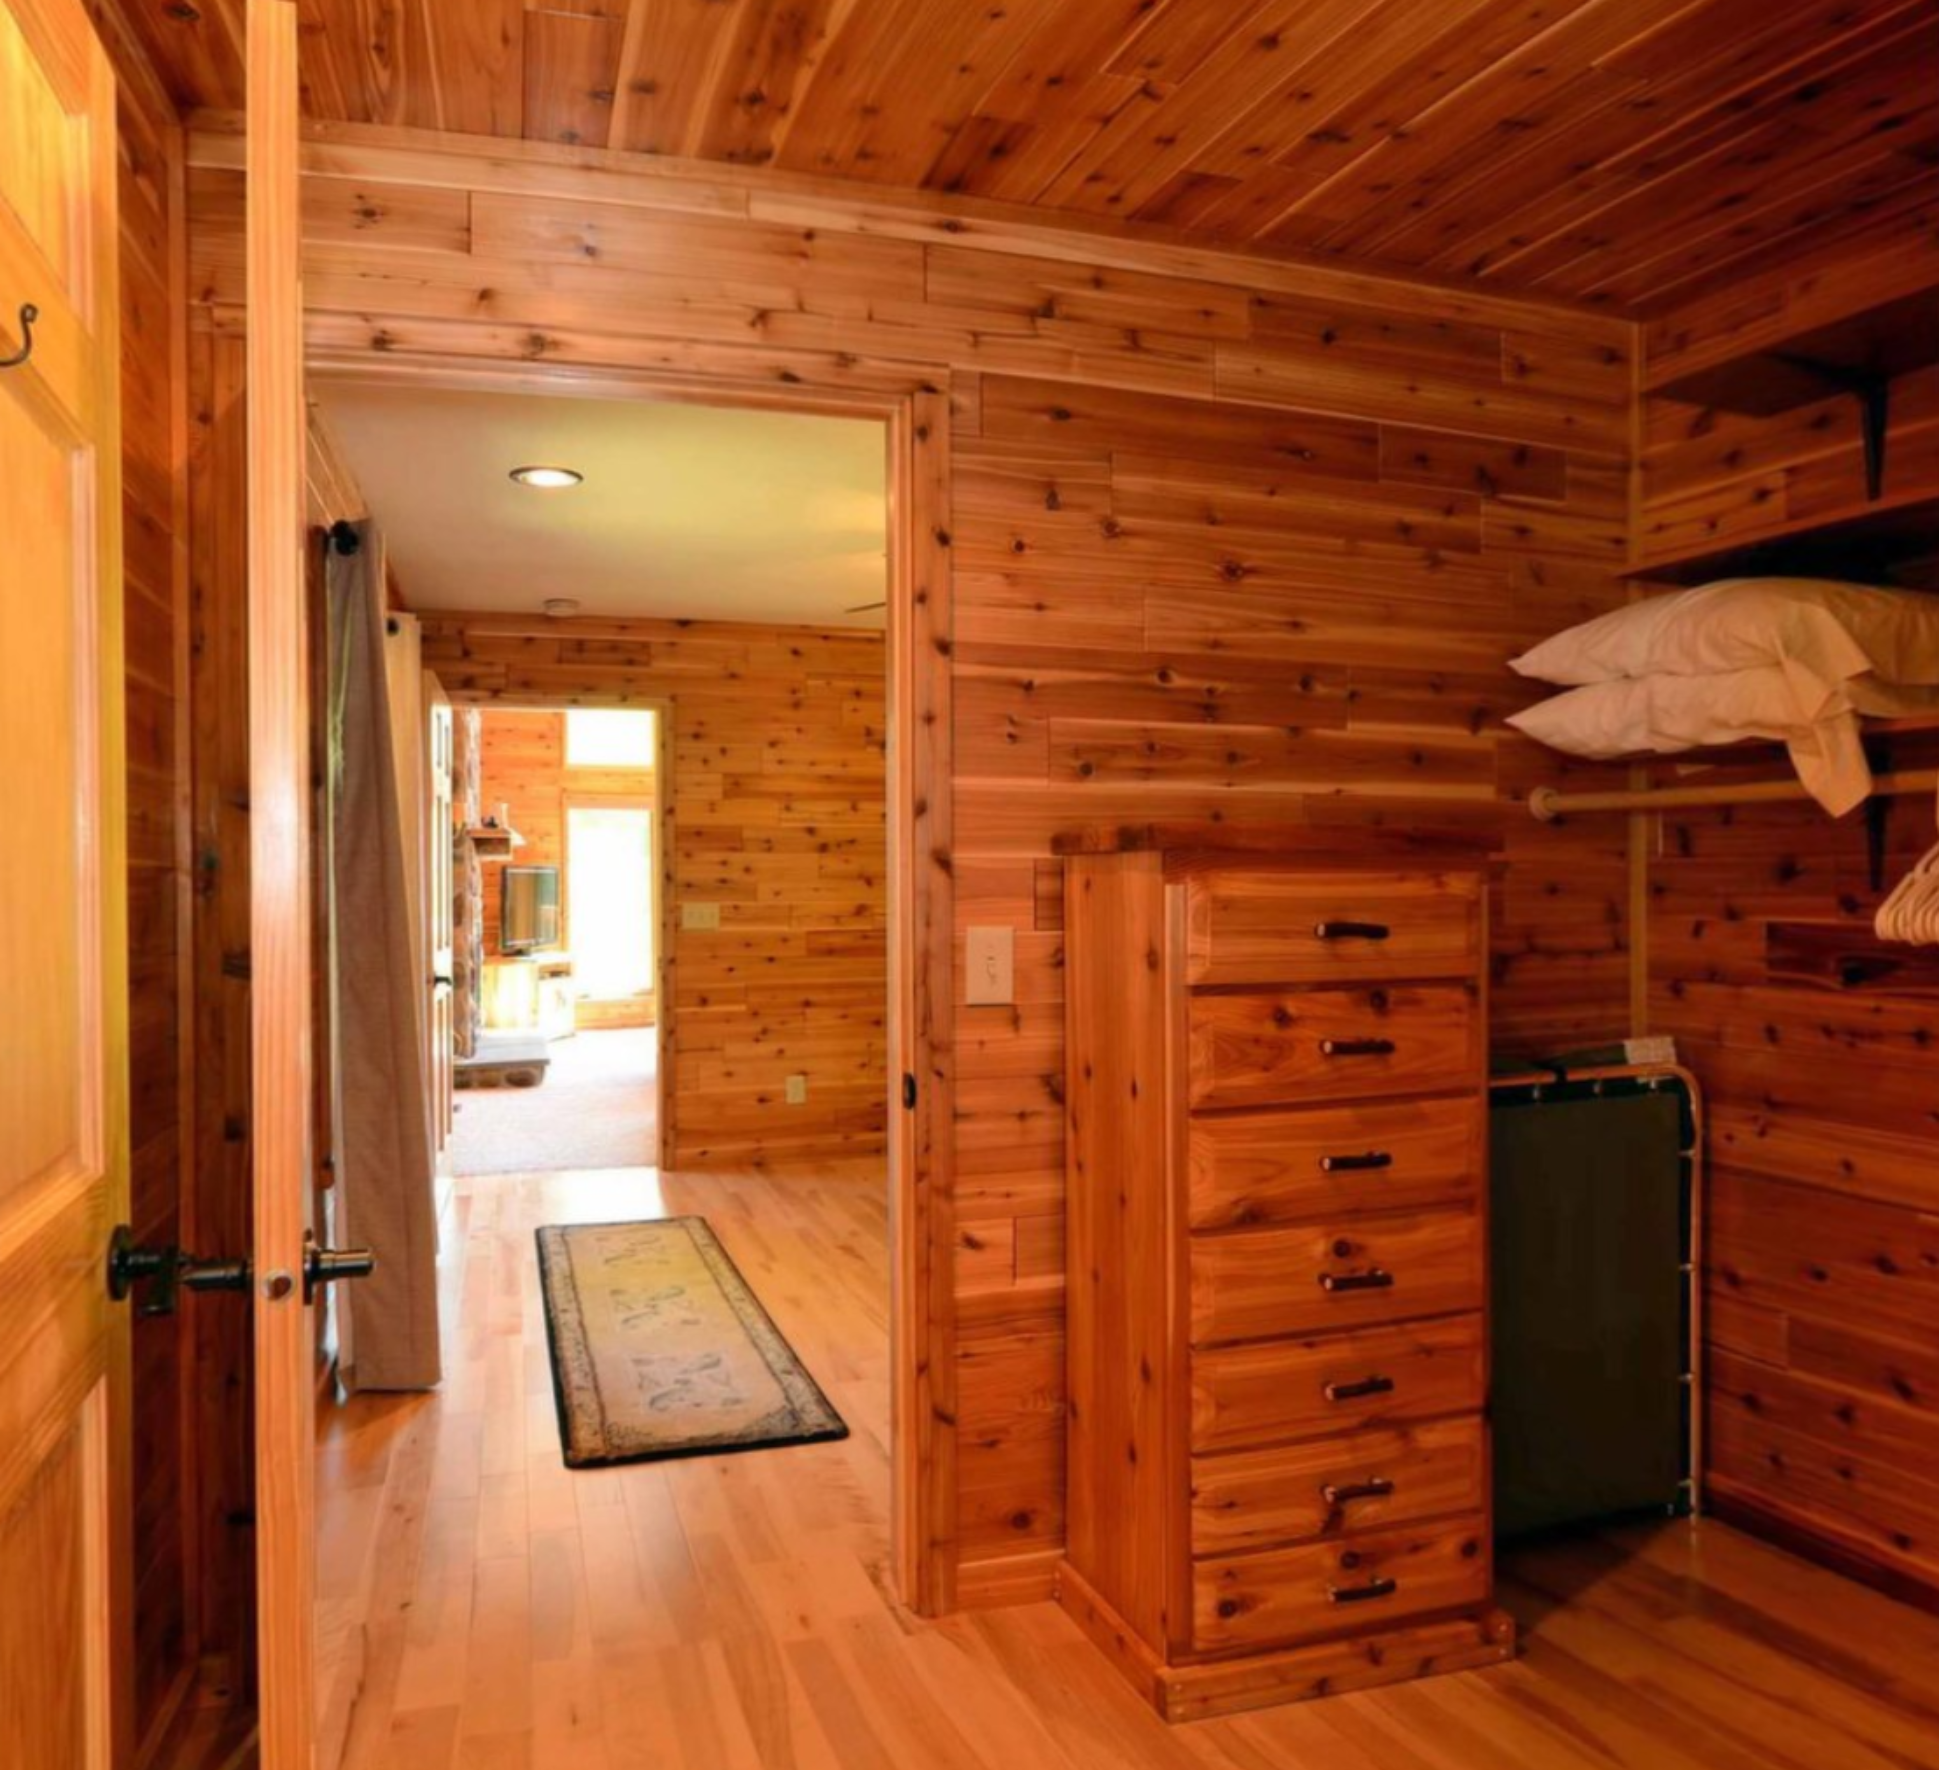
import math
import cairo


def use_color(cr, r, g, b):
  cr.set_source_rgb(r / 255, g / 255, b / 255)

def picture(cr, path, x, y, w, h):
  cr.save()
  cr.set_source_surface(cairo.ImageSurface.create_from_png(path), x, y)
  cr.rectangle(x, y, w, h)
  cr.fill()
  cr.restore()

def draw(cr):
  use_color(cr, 255, 255, 255)
  cr.paint()
  picture(cr, "img_01.png", 0, 0, 1939, 1770)


surface = cairo.ImageSurface(cairo.FORMAT_RGB24, 1939, 1770)
cr = cairo.Context(surface)
options = cairo.FontOptions()
options.set_hint_metrics(cairo.HINT_METRICS_OFF)
options.set_hint_style(cairo.HINT_STYLE_NONE)
cr.set_font_options(options)
cr.set_miter_limit(4)
draw(cr)
surface.write_to_png("out.png")
